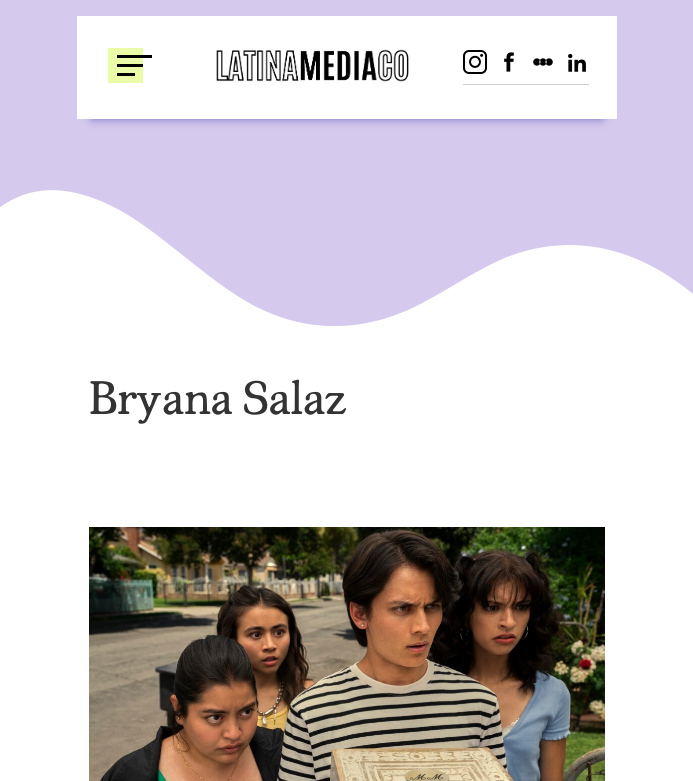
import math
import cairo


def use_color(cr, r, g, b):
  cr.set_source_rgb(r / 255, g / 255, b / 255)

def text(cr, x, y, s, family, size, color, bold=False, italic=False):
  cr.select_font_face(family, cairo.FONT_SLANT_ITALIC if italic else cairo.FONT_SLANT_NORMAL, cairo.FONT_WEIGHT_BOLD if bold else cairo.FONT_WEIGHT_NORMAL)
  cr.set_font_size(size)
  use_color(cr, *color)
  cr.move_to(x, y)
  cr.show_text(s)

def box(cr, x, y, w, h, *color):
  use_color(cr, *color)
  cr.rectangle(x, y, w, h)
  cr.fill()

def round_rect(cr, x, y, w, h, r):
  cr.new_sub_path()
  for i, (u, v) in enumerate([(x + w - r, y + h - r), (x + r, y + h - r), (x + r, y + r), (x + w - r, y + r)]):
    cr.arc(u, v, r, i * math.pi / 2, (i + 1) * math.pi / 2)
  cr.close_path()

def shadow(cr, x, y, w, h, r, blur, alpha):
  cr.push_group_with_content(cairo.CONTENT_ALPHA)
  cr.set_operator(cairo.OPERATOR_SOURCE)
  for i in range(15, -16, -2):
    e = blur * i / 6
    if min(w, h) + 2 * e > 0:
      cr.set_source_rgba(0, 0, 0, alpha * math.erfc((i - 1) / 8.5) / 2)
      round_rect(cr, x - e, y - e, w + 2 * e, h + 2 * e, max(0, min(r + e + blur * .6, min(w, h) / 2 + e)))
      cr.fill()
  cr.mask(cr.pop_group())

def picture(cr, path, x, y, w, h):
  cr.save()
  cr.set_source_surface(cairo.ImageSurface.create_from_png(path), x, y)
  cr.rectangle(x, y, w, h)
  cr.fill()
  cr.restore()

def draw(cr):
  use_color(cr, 255, 255, 255)
  cr.paint()
  box(cr, 0, 0, 693, 327, 213, 201, 237)
  use_color(cr, 120, 115, 197)
  shadow(cr, 92, 46, 510, 73, 0, 5, 1)
  box(cr, 77, 16, 540, 103, 255, 255, 255)
  box(cr, 108, 48, 35, 35, 235, 252, 168)
  box(cr, 117, 55, 35, 3, 0, 0, 0)
  box(cr, 117, 64, 26, 3, 0, 0, 0)
  box(cr, 117, 73, 18, 3, 0, 0, 0)
  picture(cr, "img_01.png", 216, 49, 193, 33)
  box(cr, 463, 84, 126, 1, 206, 206, 206)
  picture(cr, "img_02.png", 463, 50, 24, 24)
  picture(cr, "img_03.png", 504, 52, 10, 20)
  picture(cr, "img_04.png", 533, 58, 20, 8)
  picture(cr, "img_05.png", 568, 53, 18, 19)
  cr.save()
  cr.rectangle(0, 177, 693, 150)
  cr.clip()
  use_color(cr, 255, 255, 255)
  cr.new_path()
  cr.move_to(507, 257)
  cr.curve_to(473, 271, 441, 295, 408, 310)
  cr.curve_to(360, 331, 310, 332, 263, 310)
  cr.curve_to(216, 289, 168, 238, 123, 212)
  cr.curve_to(82, 189, 38, 179, -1, 208)
  cr.line_to(-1, 328)
  cr.line_to(693, 328)
  cr.line_to(693, 294)
  cr.curve_to(634, 245, 569, 233, 507, 257)
  cr.close_path()
  cr.fill()
  cr.restore()
  picture(cr, "img_06.png", 89, 527, 516, 254)
  text(cr, 89, 414, "Bryana Salaz", "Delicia", 46, (51, 51, 51))


surface = cairo.ImageSurface(cairo.FORMAT_RGB24, 693, 781)
cr = cairo.Context(surface)
options = cairo.FontOptions()
options.set_hint_metrics(cairo.HINT_METRICS_OFF)
options.set_hint_style(cairo.HINT_STYLE_NONE)
cr.set_font_options(options)
cr.set_miter_limit(4)
draw(cr)
surface.write_to_png("out.png")
